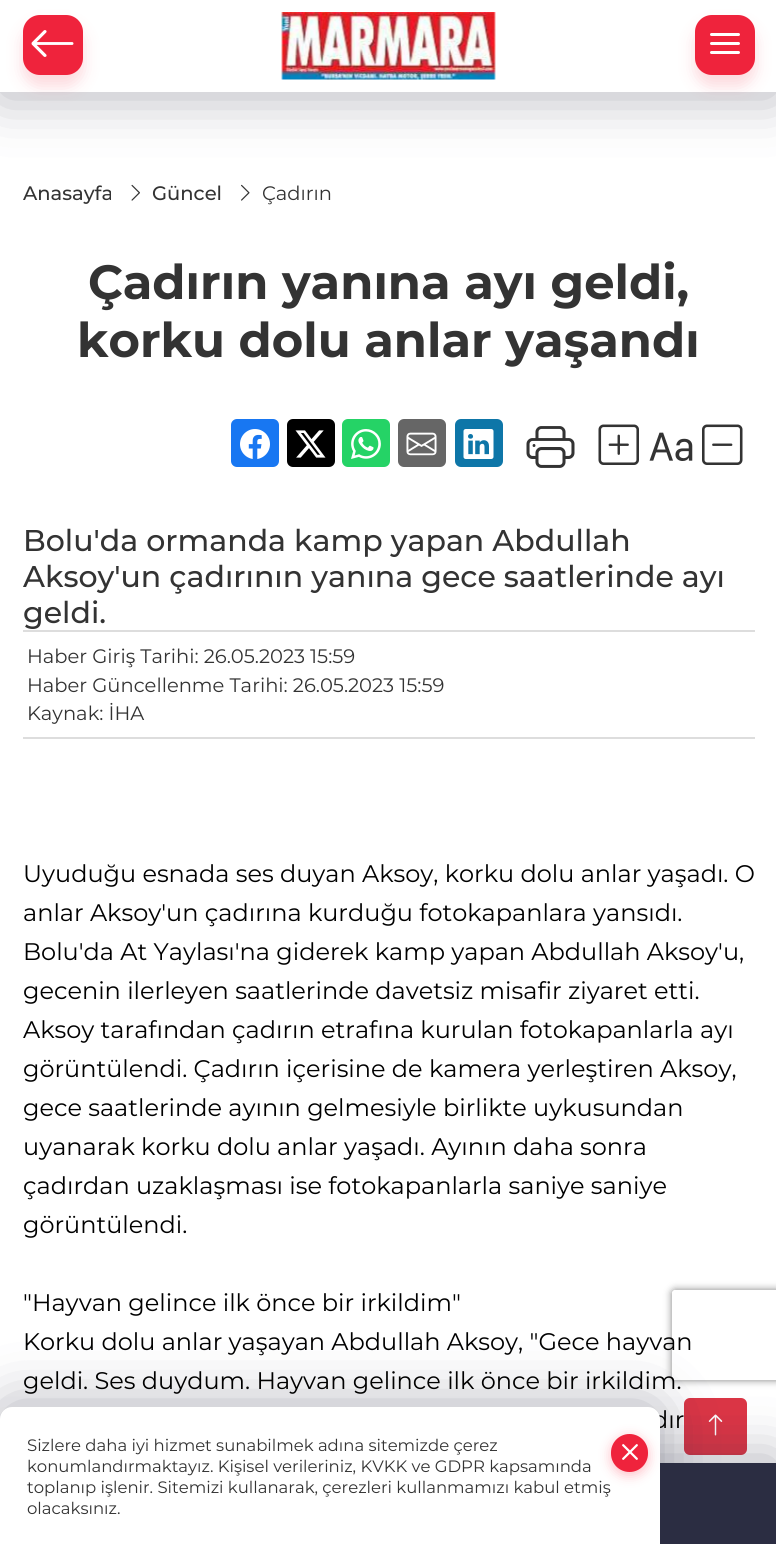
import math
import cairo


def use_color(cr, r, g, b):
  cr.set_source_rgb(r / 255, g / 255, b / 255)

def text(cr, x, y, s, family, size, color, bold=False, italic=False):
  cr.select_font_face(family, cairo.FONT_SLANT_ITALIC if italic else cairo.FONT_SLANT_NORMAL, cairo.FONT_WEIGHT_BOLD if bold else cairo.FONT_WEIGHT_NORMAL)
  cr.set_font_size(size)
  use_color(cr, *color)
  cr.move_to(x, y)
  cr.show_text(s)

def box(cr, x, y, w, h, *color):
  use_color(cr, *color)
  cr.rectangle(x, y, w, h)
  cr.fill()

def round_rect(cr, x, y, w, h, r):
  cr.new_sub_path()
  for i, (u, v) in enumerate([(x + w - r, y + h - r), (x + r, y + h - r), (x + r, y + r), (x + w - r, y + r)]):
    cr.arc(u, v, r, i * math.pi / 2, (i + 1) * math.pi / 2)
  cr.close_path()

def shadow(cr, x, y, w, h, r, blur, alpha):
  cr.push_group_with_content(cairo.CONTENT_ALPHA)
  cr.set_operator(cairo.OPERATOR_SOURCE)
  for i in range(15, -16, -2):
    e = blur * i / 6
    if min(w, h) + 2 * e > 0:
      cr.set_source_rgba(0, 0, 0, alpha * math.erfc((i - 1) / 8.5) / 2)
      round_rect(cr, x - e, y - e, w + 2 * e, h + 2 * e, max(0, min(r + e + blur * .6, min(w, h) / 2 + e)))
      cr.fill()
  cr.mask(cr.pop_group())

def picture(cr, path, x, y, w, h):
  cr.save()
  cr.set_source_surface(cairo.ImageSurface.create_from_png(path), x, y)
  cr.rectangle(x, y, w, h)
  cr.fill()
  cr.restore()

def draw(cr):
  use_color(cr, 255, 255, 255)
  cr.paint()
  use_color(cr, 43, 45, 66)
  shadow(cr, 0, 5, 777, 91, 0, 28.5, 0.36)
  box(cr, 0, 0, 776, 92, 255, 255, 255)
  use_color(cr, 239, 35, 60)
  shadow(cr, 23, 26, 60, 60, 17, 8, 0.18)
  use_color(cr, 239, 35, 60)
  round_rect(cr, 23, 15, 60, 60, 17)
  cr.fill()
  picture(cr, "img_01.png", 31, 30, 43, 27)
  picture(cr, "img_02.png", 281, 12, 215, 68)
  use_color(cr, 239, 35, 60)
  shadow(cr, 695, 26, 60, 60, 17, 8, 0.18)
  use_color(cr, 239, 35, 60)
  round_rect(cr, 695, 15, 60, 60, 17)
  cr.fill()
  use_color(cr, 255, 255, 255)
  round_rect(cr, 710, 42, 30, 3, 1.5)
  cr.fill()
  round_rect(cr, 710, 33, 30, 3, 1.5)
  cr.fill()
  round_rect(cr, 710, 51, 30, 3, 1.5)
  cr.fill()
  picture(cr, "img_03.png", 131, 184, 9, 17)
  picture(cr, "img_04.png", 241, 184, 9, 17)
  use_color(cr, 24, 119, 242)
  round_rect(cr, 231, 419, 48, 48, 6)
  cr.fill()
  picture(cr, "img_05.png", 240, 429, 30, 30)
  use_color(cr, 0, 0, 0)
  round_rect(cr, 287, 419, 48, 48, 6)
  cr.fill()
  picture(cr, "img_06.png", 295, 430, 31, 28)
  use_color(cr, 37, 211, 102)
  round_rect(cr, 342, 419, 48, 48, 6)
  cr.fill()
  picture(cr, "img_07.png", 351, 429, 30, 30)
  use_color(cr, 102, 102, 102)
  round_rect(cr, 398, 419, 48, 48, 6)
  cr.fill()
  picture(cr, "img_08.png", 406, 432, 31, 24)
  use_color(cr, 14, 118, 168)
  round_rect(cr, 455, 419, 48, 48, 6)
  cr.fill()
  picture(cr, "img_09.png", 463, 429, 31, 30)
  picture(cr, "img_10.png", 526, 426, 49, 42)
  picture(cr, "img_11.png", 598, 424, 41, 41)
  picture(cr, "img_12.png", 649, 432, 44, 29)
  picture(cr, "img_13.png", 702, 424, 41, 41)
  box(cr, 23, 630, 732, 2, 221, 221, 221)
  box(cr, 23, 737, 732, 2, 221, 221, 221)
  use_color(cr, 220, 53, 69)
  round_rect(cr, 685, 1399, 61, 55, 5)
  cr.fill_preserve()
  cr.stroke()
  picture(cr, "img_14.png", 708, 1414, 15, 22)
  use_color(cr, 43, 45, 66)
  shadow(cr, 0, 1458, 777, 83, 0, 28.5, 0.36)
  box(cr, 660, 1463, 116, 81, 43, 45, 66)
  cr.save()
  cr.set_fill_rule(cairo.FILL_RULE_EVEN_ODD)
  cr.new_path()
  cr.move_to(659, 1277)
  cr.line_to(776, 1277)
  cr.line_to(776, 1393)
  cr.line_to(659, 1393)
  cr.close_path()
  cr.move_to(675, 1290)
  cr.line_to(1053, 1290)
  cr.curve_to(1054.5, 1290, 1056, 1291.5, 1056, 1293)
  cr.line_to(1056, 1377)
  cr.curve_to(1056, 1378.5, 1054.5, 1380, 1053, 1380)
  cr.line_to(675, 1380)
  cr.curve_to(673.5, 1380, 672, 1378.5, 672, 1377)
  cr.line_to(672, 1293)
  cr.curve_to(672, 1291.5, 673.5, 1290, 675, 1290)
  cr.close_path()
  cr.clip()
  use_color(cr, 128, 128, 128)
  shadow(cr, 672, 1290, 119, 90, 3, 4, 1)
  cr.restore()
  use_color(cr, 43, 45, 66)
  shadow(cr, 0, 1403, 660, 138, 12, 28.5, 0.36)
  text(cr, 23, 200, "Anasayfa", "Montserrat Medium", 19.5, (51, 51, 51))
  text(cr, 152, 200, "Güncel", "Montserrat Medium", 19.5, (51, 51, 51))
  text(cr, 262, 200, "Çadırın", "Montserrat", 19.5, (51, 51, 51))
  text(cr, 88, 299, "Çadırın yanına ayı geldi,", "Montserrat", 48, (51, 51, 51), bold=True)
  text(cr, 77, 357, "korku dolu anlar yaşandı", "Montserrat", 48, (51, 51, 51), bold=True)
  text(cr, 23, 551, "Bolu'da ormanda kamp yapan Abdullah", "Montserrat Medium", 30, (51, 51, 51))
  text(cr, 23, 587, "Aksoy'un çadırının yanına gece saatlerinde ayı", "Montserrat Medium", 30, (51, 51, 51))
  text(cr, 23, 623, "geldi.", "Montserrat Medium", 30, (51, 51, 51))
  text(cr, 27, 663, "Haber Giriş Tarihi: 26.05.2023 15:59", "Montserrat", 19.5, (51, 51, 51))
  text(cr, 27, 692, "Haber Güncellenme Tarihi: 26.05.2023 15:59", "Montserrat", 19.5, (51, 51, 51))
  text(cr, 27, 720, "Kaynak: İHA", "Montserrat", 19.5, (51, 51, 51))
  text(cr, 23, 882, "Uyuduğu esnada ses duyan Aksoy, korku dolu anlar yaşadı. O", "Montserrat", 24, (0, 0, 0))
  text(cr, 23, 921, "anlar Aksoy'un çadırına kurduğu fotokapanlara yansıdı.", "Montserrat", 24, (0, 0, 0))
  text(cr, 23, 960, "Bolu'da At Yaylası'na giderek kamp yapan Abdullah Aksoy'u,", "Montserrat", 24, (0, 0, 0))
  text(cr, 23, 999, "gecenin ilerleyen saatlerinde davetsiz misafir ziyaret etti.", "Montserrat", 24, (0, 0, 0))
  text(cr, 23, 1038, "Aksoy tarafından çadırın etrafına kurulan fotokapanlarla ayı", "Montserrat", 24, (0, 0, 0))
  text(cr, 23, 1077, "görüntülendi. Çadırın içerisine de kamera yerleştiren Aksoy,", "Montserrat", 24, (0, 0, 0))
  text(cr, 23, 1116, "gece saatlerinde ayının gelmesiyle birlikte uykusundan", "Montserrat", 24, (0, 0, 0))
  text(cr, 23, 1155, "uyanarak korku dolu anlar yaşadı. Ayının daha sonra", "Montserrat", 24, (0, 0, 0))
  text(cr, 23, 1194, "çadırdan uzaklaşması ise fotokapanlarla saniye saniye", "Montserrat", 24, (0, 0, 0))
  text(cr, 23, 1233, "görüntülendi.", "Montserrat", 24, (0, 0, 0))
  text(cr, 23, 1311, "\"Hayvan gelince ilk önce bir irkildim\"", "Montserrat", 24, (0, 0, 0))
  text(cr, 23, 1350, "Korku dolu anlar yaşayan Abdullah Aksoy, \"Gece hayvan", "Montserrat", 24, (0, 0, 0))
  text(cr, 23, 1389, "geldi. Ses duydum. Hayvan gelince ilk önce bir irkildim.", "Montserrat", 24, (0, 0, 0))
  text(cr, 652, 1428, "dır", "Montserrat", 24, (0, 0, 0))
  use_color(cr, 255, 255, 255)
  cr.new_path()
  cr.move_to(12, 1407)
  cr.line_to(648, 1407)
  cr.curve_to(654.5, 1407, 660, 1412.5, 660, 1419)
  cr.line_to(660, 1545)
  cr.line_to(0, 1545)
  cr.line_to(0, 1419)
  cr.curve_to(0, 1412.5, 5.5, 1407, 12, 1407)
  cr.close_path()
  cr.fill()
  text(cr, 27, 1451, "Sizlere daha iyi hizmet sunabilmek adına sitemizde çerez", "Montserrat", 16.5, (51, 51, 51))
  use_color(cr, 255, 86, 106)
  shadow(cr, 611, 1437, 37, 38, 18.5, 6, 0.38)
  use_color(cr, 239, 35, 60)
  round_rect(cr, 611, 1434, 37, 38, 18.5)
  cr.fill()
  picture(cr, "img_15.png", 622, 1444, 16, 16)
  text(cr, 27, 1472, "konumlandırmaktayız. Kişisel verileriniz, KVKK ve GDPR kapsamında", "Montserrat", 16.5, (51, 51, 51))
  text(cr, 27, 1493, "toplanıp işlenir. Sitemizi kullanarak, çerezleri kullanmamızı kabul etmiş", "Montserrat", 16.5, (51, 51, 51))
  text(cr, 27, 1514, "olacaksınız.", "Montserrat", 16.5, (51, 51, 51))


surface = cairo.ImageSurface(cairo.FORMAT_RGB24, 776, 1544)
cr = cairo.Context(surface)
options = cairo.FontOptions()
options.set_hint_metrics(cairo.HINT_METRICS_OFF)
options.set_hint_style(cairo.HINT_STYLE_NONE)
cr.set_font_options(options)
cr.set_miter_limit(4)
draw(cr)
surface.write_to_png("out.png")
